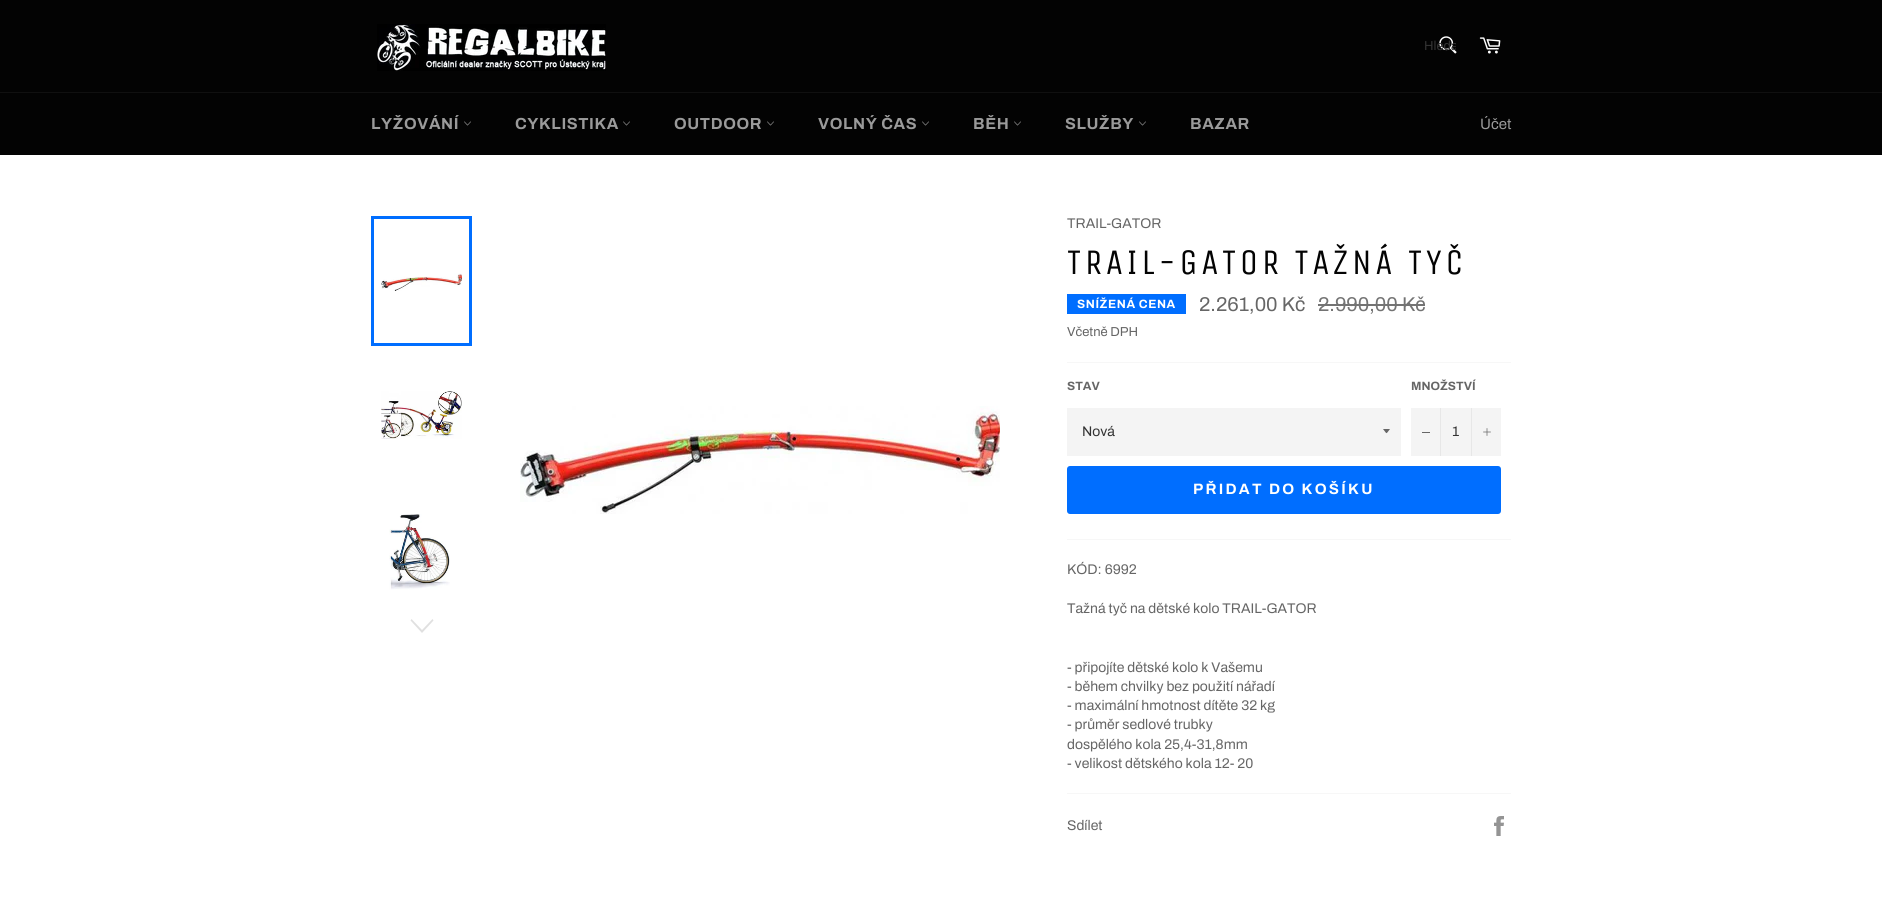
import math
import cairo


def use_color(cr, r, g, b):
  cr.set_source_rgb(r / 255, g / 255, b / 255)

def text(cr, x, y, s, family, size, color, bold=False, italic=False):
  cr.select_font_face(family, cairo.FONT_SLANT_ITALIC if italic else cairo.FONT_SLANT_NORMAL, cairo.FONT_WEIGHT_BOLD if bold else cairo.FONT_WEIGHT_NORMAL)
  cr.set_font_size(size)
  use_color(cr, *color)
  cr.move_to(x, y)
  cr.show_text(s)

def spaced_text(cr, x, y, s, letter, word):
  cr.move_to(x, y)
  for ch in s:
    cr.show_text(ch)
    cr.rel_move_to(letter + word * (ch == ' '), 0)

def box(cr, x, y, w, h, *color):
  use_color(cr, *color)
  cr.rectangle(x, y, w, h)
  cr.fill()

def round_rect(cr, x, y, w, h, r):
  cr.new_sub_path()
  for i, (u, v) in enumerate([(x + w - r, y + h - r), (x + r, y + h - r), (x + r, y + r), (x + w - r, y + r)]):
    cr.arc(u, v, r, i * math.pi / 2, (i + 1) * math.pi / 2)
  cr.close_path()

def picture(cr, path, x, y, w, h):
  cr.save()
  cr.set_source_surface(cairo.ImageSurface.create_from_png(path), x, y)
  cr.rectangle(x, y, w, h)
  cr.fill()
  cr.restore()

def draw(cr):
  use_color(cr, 3, 3, 3)
  cr.paint()
  picture(cr, "img_01.png", 377, 24, 229, 47)
  picture(cr, "img_02.png", 1439, 36, 18, 18)
  picture(cr, "img_03.png", 1479, 37, 22, 17)
  box(cr, 0, 92, 1882, 1, 16, 16, 16)
  picture(cr, "img_04.png", 464, 121, 7, 5)
  picture(cr, "img_04.png", 623, 121, 7, 5)
  picture(cr, "img_04.png", 767, 121, 7, 5)
  picture(cr, "img_04.png", 922, 121, 7, 5)
  picture(cr, "img_04.png", 1014, 121, 7, 5)
  picture(cr, "img_04.png", 1139, 121, 7, 5)
  box(cr, 0, 155, 1882, 759, 255, 255, 255)
  picture(cr, "img_05.png", 381, 273, 81, 18)
  cr.rectangle(372.5, 217.5, 98, 127)
  use_color(cr, 0, 110, 255)
  cr.set_line_width(3)
  cr.stroke()
  picture(cr, "img_06.png", 381, 391, 81, 48)
  picture(cr, "img_07.png", 389, 514, 61, 76)
  use_color(cr, 224, 224, 224)
  cr.new_path()
  cr.move_to(432.5, 619)
  cr.line_to(433.5, 620.5)
  cr.line_to(422, 633)
  cr.line_to(410.5, 620.5)
  cr.line_to(411.5, 619)
  cr.line_to(422, 630)
  cr.close_path()
  cr.fill()
  picture(cr, "img_08.png", 520, 406, 480, 108)
  box(cr, 1067, 294, 119, 20, 0, 110, 255)
  box(cr, 1318, 304, 107, 2, 115, 115, 115)
  box(cr, 1067, 362, 444, 1, 247, 247, 247)
  box(cr, 1067, 408, 334, 48, 244, 244, 244)
  use_color(cr, 102, 102, 102)
  cr.new_path()
  cr.move_to(1383, 429)
  cr.curve_to(1387.5, 434.5, 1385.5, 434.5, 1390, 429)
  cr.close_path()
  cr.fill()
  box(cr, 1411, 408, 90, 48, 244, 244, 244)
  box(cr, 1440, 408, 1, 48, 231, 231, 231)
  box(cr, 1422, 432, 8, 1, 102, 102, 102)
  box(cr, 1471, 408, 1, 48, 231, 231, 231)
  picture(cr, "img_09.png", 1483, 428, 8, 8)
  use_color(cr, 0, 110, 255)
  round_rect(cr, 1067, 466, 434, 48, 3)
  cr.fill()
  box(cr, 1067, 539, 444, 1, 247, 247, 247)
  box(cr, 1067, 793, 444, 1, 247, 247, 247)
  picture(cr, "img_10.png", 1494, 816, 10, 20)
  cr.save()
  cr.rectangle(1424, 39, 32, 14)
  cr.clip()
  text(cr, 1424, 50, "Hleda", "Archivo", 13, (51, 51, 51))
  cr.restore()
  cr.select_font_face("Archivo", cairo.FONT_SLANT_NORMAL, cairo.FONT_WEIGHT_BOLD)
  cr.set_font_size(16)
  use_color(cr, 154, 154, 154)
  spaced_text(cr, 371, 129, "LYŽOVÁNÍ", 0.6, 0)
  spaced_text(cr, 515, 129, "CYKLISTIKA", 0.6, 0)
  spaced_text(cr, 674, 129, "OUTDOOR", 0.6, 0)
  spaced_text(cr, 818, 129, "VOLNÝ ČAS", 0.6, 0)
  spaced_text(cr, 973, 129, "BĚH", 0.6, 0)
  spaced_text(cr, 1065, 129, "SLUŽBY", 0.6, 0)
  spaced_text(cr, 1190, 129, "BAZAR", 0.6, 0)
  text(cr, 1480, 129, "Účet", "Archivo", 15, (154, 154, 154))
  text(cr, 1067, 228, "TRAIL-GATOR", "Archivo", 14, (102, 102, 102))
  cr.select_font_face("Unica One")
  cr.set_font_size(36)
  use_color(cr, 3, 3, 3)
  spaced_text(cr, 1067, 274, "TRAIL-GATOR TAŽNÁ TYČ", 3.6, 0)
  cr.select_font_face("Archivo", cairo.FONT_SLANT_NORMAL, cairo.FONT_WEIGHT_BOLD)
  cr.set_font_size(12)
  use_color(cr, 255, 255, 255)
  spaced_text(cr, 1077, 308, "SNÍŽENÁ CENA", 0.6, 0)
  text(cr, 1199, 311, "2.261,00 Kč", "Archivo", 20, (102, 102, 102))
  text(cr, 1318, 311, "2.990,00 Kč", "Archivo", 20, (115, 115, 115))
  text(cr, 1067, 336, "Včetně DPH", "Archivo", 13, (102, 102, 102))
  text(cr, 1067, 390, "STAV", "Archivo", 12, (102, 102, 102), bold=True)
  text(cr, 1082, 436, "Nová", "Archivo", 14, (51, 51, 51))
  text(cr, 1411, 390, "MNOŽSTVÍ", "Archivo", 12, (102, 102, 102), bold=True)
  text(cr, 1452, 436, "1", "Archivo", 14, (51, 51, 51))
  cr.select_font_face("Archivo", cairo.FONT_SLANT_NORMAL, cairo.FONT_WEIGHT_BOLD)
  cr.set_font_size(15)
  use_color(cr, 255, 255, 255)
  spaced_text(cr, 1193, 494, "PŘIDAT DO KOŠÍKU", 2.25, 0)
  text(cr, 1067, 574, "KÓD: 6992", "Archivo", 14, (102, 102, 102))
  text(cr, 1067, 613, "Tažná tyč na dětské kolo TRAIL-GATOR", "Archivo", 14, (102, 102, 102))
  text(cr, 1067, 672, "- připojíte dětské kolo k Vašemu", "Archivo", 14, (102, 102, 102))
  text(cr, 1067, 691, "- během chvilky bez použití nářadí", "Archivo", 14, (102, 102, 102))
  text(cr, 1067, 710, "- maximální hmotnost dítěte 32 kg", "Archivo", 14, (102, 102, 102))
  text(cr, 1067, 729, "- průměr sedlové trubky", "Archivo", 14, (102, 102, 102))
  text(cr, 1067, 749, "dospělého kola 25,4-31,8mm", "Archivo", 14, (102, 102, 102))
  text(cr, 1067, 768, "- velikost dětského kola 12- 20", "Archivo", 14, (102, 102, 102))
  text(cr, 1067, 830, "Sdílet", "Archivo", 14, (102, 102, 102))


surface = cairo.ImageSurface(cairo.FORMAT_RGB24, 1882, 914)
cr = cairo.Context(surface)
options = cairo.FontOptions()
options.set_hint_metrics(cairo.HINT_METRICS_OFF)
options.set_hint_style(cairo.HINT_STYLE_NONE)
cr.set_font_options(options)
cr.set_miter_limit(4)
draw(cr)
surface.write_to_png("out.png")
